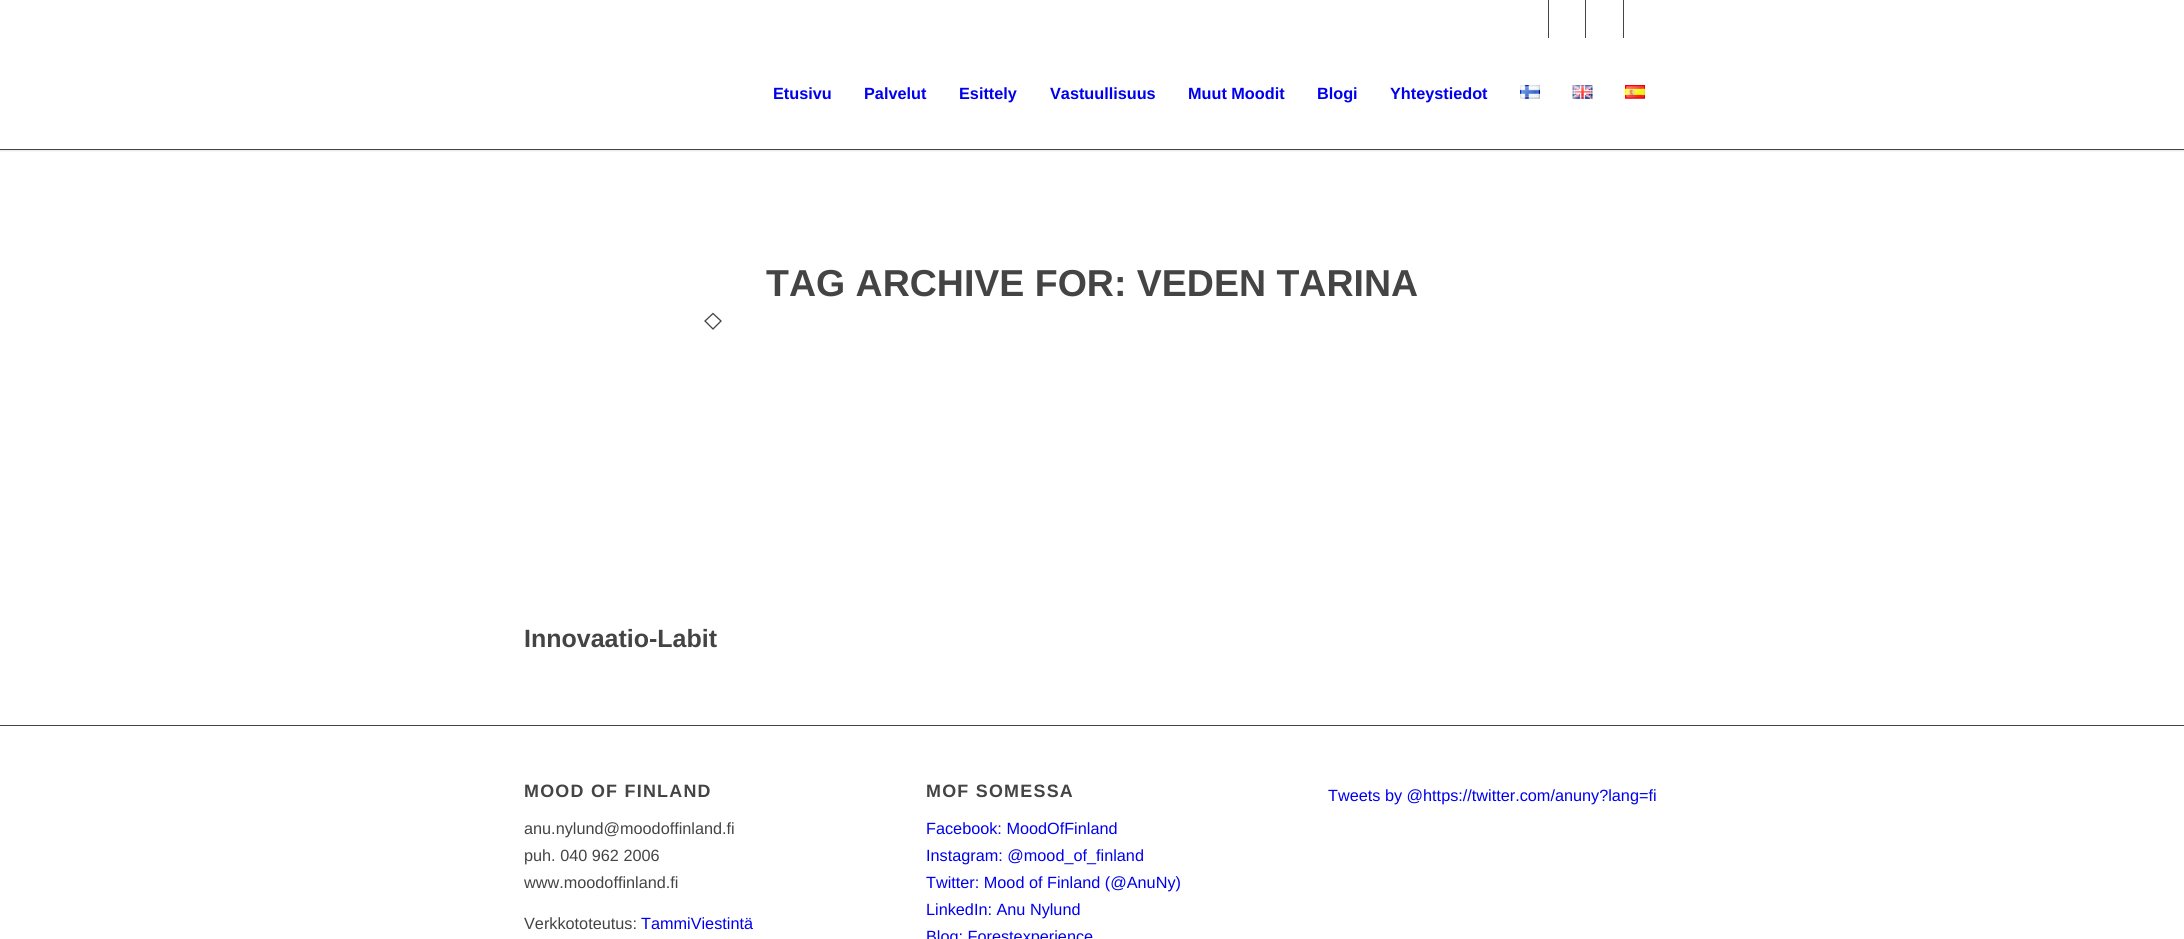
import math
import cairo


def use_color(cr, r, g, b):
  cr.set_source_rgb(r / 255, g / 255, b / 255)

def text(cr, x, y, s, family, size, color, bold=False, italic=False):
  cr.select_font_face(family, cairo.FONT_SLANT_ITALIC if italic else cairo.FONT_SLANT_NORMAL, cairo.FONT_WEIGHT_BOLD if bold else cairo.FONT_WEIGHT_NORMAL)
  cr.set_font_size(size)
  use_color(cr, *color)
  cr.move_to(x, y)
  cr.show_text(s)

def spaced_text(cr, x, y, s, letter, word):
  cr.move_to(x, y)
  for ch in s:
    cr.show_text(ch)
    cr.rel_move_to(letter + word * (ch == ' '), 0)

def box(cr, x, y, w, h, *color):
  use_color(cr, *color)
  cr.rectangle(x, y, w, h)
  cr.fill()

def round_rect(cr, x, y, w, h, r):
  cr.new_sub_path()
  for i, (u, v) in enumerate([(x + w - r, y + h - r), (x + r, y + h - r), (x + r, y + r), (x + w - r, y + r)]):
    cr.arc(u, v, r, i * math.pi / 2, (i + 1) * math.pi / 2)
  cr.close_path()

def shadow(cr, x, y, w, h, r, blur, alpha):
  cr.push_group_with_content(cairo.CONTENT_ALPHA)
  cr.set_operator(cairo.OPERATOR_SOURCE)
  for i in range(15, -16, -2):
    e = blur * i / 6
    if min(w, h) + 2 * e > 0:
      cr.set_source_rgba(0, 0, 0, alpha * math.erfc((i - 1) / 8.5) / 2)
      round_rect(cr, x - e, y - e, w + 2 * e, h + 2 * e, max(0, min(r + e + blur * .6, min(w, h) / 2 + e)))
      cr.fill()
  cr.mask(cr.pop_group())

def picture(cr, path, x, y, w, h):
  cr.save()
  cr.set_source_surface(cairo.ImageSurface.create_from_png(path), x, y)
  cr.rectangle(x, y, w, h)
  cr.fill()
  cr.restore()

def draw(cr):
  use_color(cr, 255, 255, 255)
  cr.paint()
  box(cr, 0, 149, 2184, 1, 68, 68, 68)
  cr.save()
  cr.rectangle(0, 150, 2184, 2)
  cr.clip()
  use_color(cr, 0, 0, 0)
  shadow(cr, -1, -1, 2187, 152, 0, 1, 0.1)
  cr.restore()
  box(cr, 1548, 0, 1, 38, 68, 68, 68)
  box(cr, 1585, 0, 1, 38, 68, 68, 68)
  box(cr, 1623, 0, 1, 38, 68, 68, 68)
  picture(cr, "img_01.png", 1520, 85, 20, 14)
  picture(cr, "img_02.png", 1572, 85, 21, 14)
  picture(cr, "img_03.png", 1625, 85, 20, 14)
  cr.new_path()
  cr.move_to(713, 313.5)
  cr.line_to(721, 321)
  cr.line_to(713, 329)
  cr.line_to(705, 321)
  cr.close_path()
  cr.set_line_width(1.3)
  cr.stroke()
  box(cr, 0, 725, 2184, 1, 68, 68, 68)
  text(cr, 773, 99, "Etusivu", "Liberation Sans", 16.25, (0, 0, 238), bold=True)
  text(cr, 864, 99, "Palvelut", "Liberation Sans", 16.25, (0, 0, 238), bold=True)
  text(cr, 959, 99, "Esittely", "Liberation Sans", 16.25, (0, 0, 238), bold=True)
  text(cr, 1050, 99, "Vastuullisuus", "Liberation Sans", 16.25, (0, 0, 238), bold=True)
  text(cr, 1188, 99, "Muut Moodit", "Liberation Sans", 16.25, (0, 0, 238), bold=True)
  text(cr, 1317, 99, "Blogi", "Liberation Sans", 16.25, (0, 0, 238), bold=True)
  text(cr, 1390, 99, "Yhteystiedot", "Liberation Sans", 16.25, (0, 0, 238), bold=True)
  text(cr, 766, 296, "TAG ARCHIVE FOR: VEDEN TARINA", "Liberation Sans", 37.5, (68, 68, 68), bold=True)
  text(cr, 524, 647, "Innovaatio-Labit", "Liberation Sans", 25, (68, 68, 68), bold=True)
  cr.set_font_size(17.9)
  spaced_text(cr, 524, 797, "MOOD OF FINLAND", 1.25, 0)
  text(cr, 524, 834, "anu.nylund@moodoffinland.fi", "Liberation Sans", 16.25, (68, 68, 68))
  text(cr, 524, 861, "puh. 040 962 2006", "Liberation Sans", 16.25, (68, 68, 68))
  text(cr, 524, 888, "www.moodoffinland.fi", "Liberation Sans", 16.25, (68, 68, 68))
  text(cr, 524, 929, "Verkkototeutus:", "Liberation Sans", 16.25, (68, 68, 68))
  text(cr, 641, 929, "TammiViestintä", "Liberation Sans", 16.25, (0, 0, 238))
  cr.select_font_face("Liberation Sans", cairo.FONT_SLANT_NORMAL, cairo.FONT_WEIGHT_BOLD)
  cr.set_font_size(17.9)
  use_color(cr, 68, 68, 68)
  spaced_text(cr, 926, 797, "MOF SOMESSA", 1.25, 0)
  text(cr, 926, 834, "Facebook: MoodOfFinland", "Liberation Sans", 16.25, (0, 0, 238))
  text(cr, 926, 861, "Instagram: @mood_of_finland", "Liberation Sans", 16.25, (0, 0, 238))
  text(cr, 926, 888, "Twitter: Mood of Finland (@AnuNy)", "Liberation Sans", 16.25, (0, 0, 238))
  text(cr, 926, 915, "LinkedIn: Anu Nylund", "Liberation Sans", 16.25, (0, 0, 238))
  text(cr, 926, 942, "Blog: Forestexperience", "Liberation Sans", 16.25, (0, 0, 238))
  text(cr, 1328, 801, "Tweets by @https://twitter.com/anuny?lang=fi", "Liberation Sans", 16.25, (0, 0, 238))


surface = cairo.ImageSurface(cairo.FORMAT_RGB24, 2184, 939)
cr = cairo.Context(surface)
options = cairo.FontOptions()
options.set_hint_metrics(cairo.HINT_METRICS_OFF)
options.set_hint_style(cairo.HINT_STYLE_NONE)
cr.set_font_options(options)
cr.set_miter_limit(4)
draw(cr)
surface.write_to_png("out.png")
